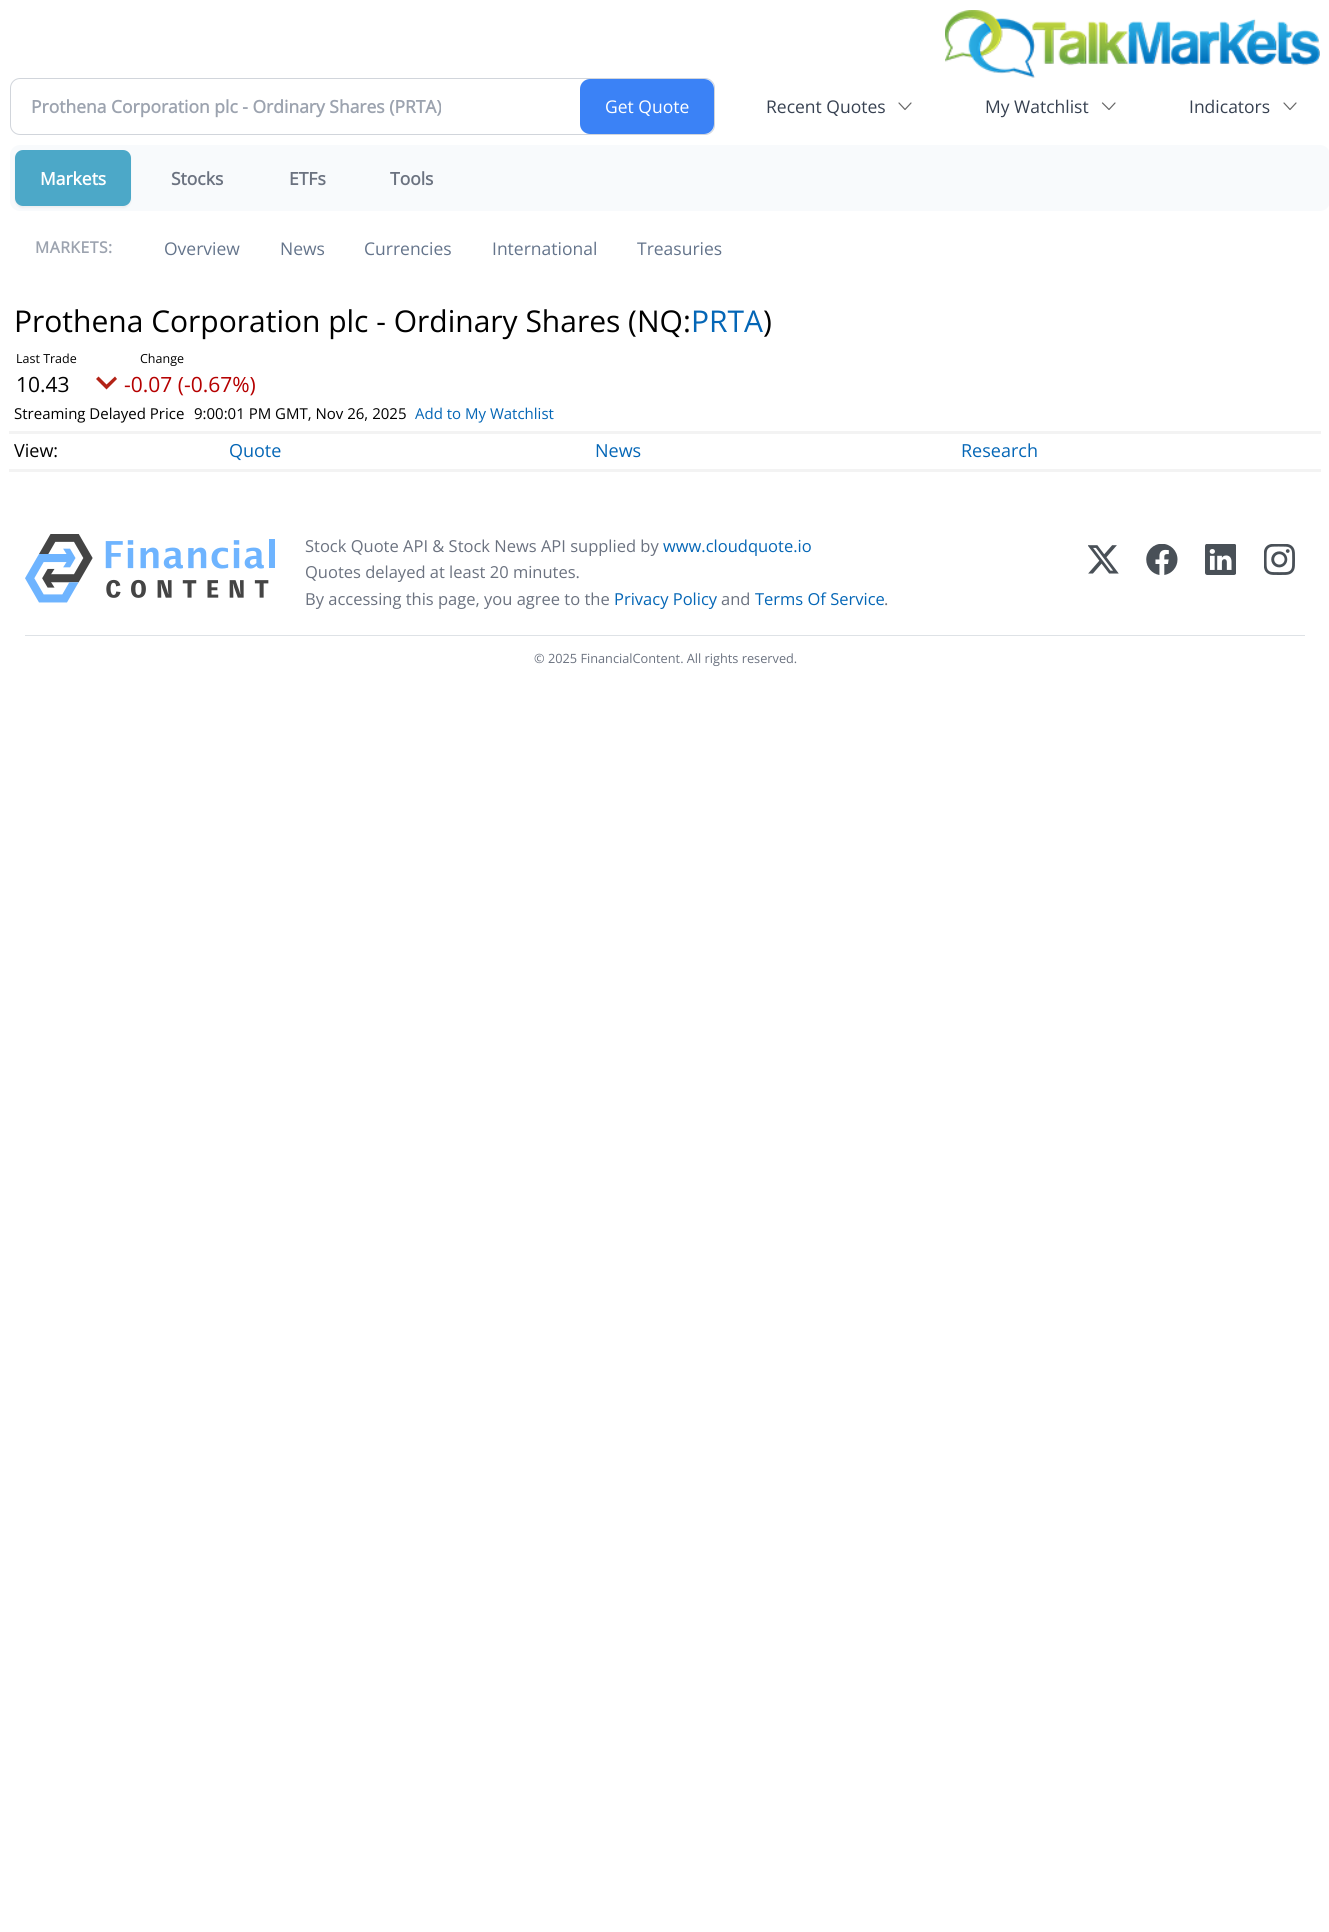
import math
import cairo


def use_color(cr, r, g, b):
  cr.set_source_rgb(r / 255, g / 255, b / 255)

def text(cr, x, y, s, family, size, color, bold=False, italic=False):
  cr.select_font_face(family, cairo.FONT_SLANT_ITALIC if italic else cairo.FONT_SLANT_NORMAL, cairo.FONT_WEIGHT_BOLD if bold else cairo.FONT_WEIGHT_NORMAL)
  cr.set_font_size(size)
  use_color(cr, *color)
  cr.move_to(x, y)
  cr.show_text(s)

def spaced_text(cr, x, y, s, letter, word):
  cr.move_to(x, y)
  for ch in s:
    cr.show_text(ch)
    cr.rel_move_to(letter + word * (ch == ' '), 0)

def box(cr, x, y, w, h, *color):
  use_color(cr, *color)
  cr.rectangle(x, y, w, h)
  cr.fill()

def round_rect(cr, x, y, w, h, r):
  cr.new_sub_path()
  for i, (u, v) in enumerate([(x + w - r, y + h - r), (x + r, y + h - r), (x + r, y + r), (x + w - r, y + r)]):
    cr.arc(u, v, r, i * math.pi / 2, (i + 1) * math.pi / 2)
  cr.close_path()

def shadow(cr, x, y, w, h, r, blur, alpha):
  cr.push_group_with_content(cairo.CONTENT_ALPHA)
  cr.set_operator(cairo.OPERATOR_SOURCE)
  for i in range(15, -16, -2):
    e = blur * i / 6
    if min(w, h) + 2 * e > 0:
      cr.set_source_rgba(0, 0, 0, alpha * math.erfc((i - 1) / 8.5) / 2)
      round_rect(cr, x - e, y - e, w + 2 * e, h + 2 * e, max(0, min(r + e + blur * .6, min(w, h) / 2 + e)))
      cr.fill()
  cr.mask(cr.pop_group())

def picture(cr, path, x, y, w, h):
  cr.save()
  cr.set_source_surface(cairo.ImageSurface.create_from_png(path), x, y)
  cr.rectangle(x, y, w, h)
  cr.fill()
  cr.restore()

def draw(cr):
  use_color(cr, 255, 255, 255)
  cr.paint()
  picture(cr, "img_01.png", 945, 10, 375, 68)
  round_rect(cr, 10.5, 78.5, 704, 56, 9.5)
  use_color(cr, 209, 213, 219)
  cr.set_line_width(1)
  cr.stroke()
  use_color(cr, 59, 130, 246)
  round_rect(cr, 580, 79, 134, 55, 10)
  cr.fill()
  cr.new_path()
  cr.move_to(911, 103)
  cr.line_to(905, 109.5)
  cr.line_to(899, 103)
  use_color(cr, 102, 102, 102)
  cr.set_line_width(1.2)
  cr.set_line_cap(cairo.LINE_CAP_ROUND)
  cr.set_line_join(cairo.LINE_JOIN_ROUND)
  cr.stroke()
  cr.new_path()
  cr.move_to(1115, 103)
  cr.line_to(1109, 109.5)
  cr.line_to(1102.5, 103)
  cr.stroke()
  cr.new_path()
  cr.move_to(1296, 103)
  cr.line_to(1290, 109.5)
  cr.line_to(1284, 103)
  cr.stroke()
  use_color(cr, 248, 250, 252)
  round_rect(cr, 10, 145, 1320, 66, 10)
  cr.fill()
  use_color(cr, 0, 0, 0)
  shadow(cr, 15, 151, 116, 57, 8, 1, 0.05)
  use_color(cr, 76, 168, 200)
  round_rect(cr, 15, 150, 116, 56, 8)
  cr.fill()
  use_color(cr, 179, 35, 23)
  cr.new_path()
  cr.move_to(115, 376.5)
  cr.line_to(117, 379)
  cr.line_to(106.5, 389.5)
  cr.line_to(96, 379)
  cr.line_to(98.5, 376.5)
  cr.line_to(106.5, 384.5)
  cr.close_path()
  cr.fill()
  box(cr, 9, 431, 1312, 3, 243, 243, 243)
  box(cr, 9, 469, 1312, 3, 243, 243, 243)
  picture(cr, "img_02.png", 25, 534, 250, 69)
  picture(cr, "img_03.png", 1088, 545, 31, 29)
  picture(cr, "img_04.png", 1146, 544, 32, 31)
  picture(cr, "img_05.png", 1205, 544, 31, 31)
  picture(cr, "img_06.png", 1264, 544, 31, 31)
  box(cr, 25, 635, 1280, 1, 222, 226, 230)
  text(cr, 31, 113, "Prothena Corporation plc - Ordinary Shares (PRTA)", "Open Sans", 17.5, (156, 163, 175), bold=True)
  text(cr, 605, 113, "Get Quote", "Open Sans", 17.5, (255, 255, 255))
  text(cr, 766, 113, "Recent Quotes", "Open Sans", 17.5, (55, 65, 81))
  text(cr, 985, 113, "My Watchlist", "Open Sans", 17.5, (55, 65, 81))
  text(cr, 1189, 113, "Indicators", "Open Sans", 17.5, (55, 65, 81))
  text(cr, 40, 185, "Markets", "Open Sans", 17.5, (255, 255, 255), bold=True)
  text(cr, 171, 185, "Stocks", "Open Sans", 17.5, (107, 114, 128), bold=True)
  text(cr, 289, 185, "ETFs", "Open Sans", 17.5, (107, 114, 128), bold=True)
  text(cr, 390, 185, "Tools", "Open Sans", 17.5, (107, 114, 128), bold=True)
  cr.set_font_size(15.75)
  use_color(cr, 156, 163, 175)
  spaced_text(cr, 35, 253, "MARKETS:", 0.5, 0)
  text(cr, 164, 255, "Overview", "Open Sans", 17.5, (100, 116, 139))
  text(cr, 280, 255, "News", "Open Sans", 17.5, (100, 116, 139))
  text(cr, 364, 255, "Currencies", "Open Sans", 17.5, (100, 116, 139))
  text(cr, 492, 255, "International", "Open Sans", 17.5, (100, 116, 139))
  text(cr, 637, 255, "Treasuries", "Open Sans", 17.5, (100, 116, 139))
  text(cr, 14, 332, "Prothena Corporation plc - Ordinary Shares (NQ:", "Open Sans", 30, (0, 0, 0))
  text(cr, 691, 332, "PRTA", "Open Sans", 30, (4, 102, 182))
  text(cr, 763, 332, ")", "Open Sans", 30, (0, 0, 0))
  text(cr, 16, 363, "Last Trade", "Open Sans", 12.5, (0, 0, 0))
  text(cr, 16, 392, "10.43", "Open Sans", 21, (0, 0, 0))
  text(cr, 140, 363, "Change", "Open Sans", 12.5, (0, 0, 0))
  text(cr, 124, 392, "-0.07 (-0.67%)", "Open Sans", 21, (181, 0, 0))
  text(cr, 14, 419, "Streaming Delayed Price", "Open Sans", 15, (0, 0, 0))
  text(cr, 194, 419, "9:00:01 PM GMT, Nov 26, 2025", "Open Sans", 15, (0, 0, 0))
  text(cr, 415, 419, "Add to My Watchlist", "Open Sans", 15, (4, 102, 182))
  text(cr, 14, 457, "View:", "Open Sans", 18, (0, 0, 0))
  text(cr, 229, 457, "Quote", "Open Sans", 18, (4, 102, 182))
  text(cr, 595, 457, "News", "Open Sans", 18, (4, 102, 182))
  text(cr, 961, 457, "Research", "Open Sans", 18, (4, 102, 182))
  text(cr, 305, 552, "Stock Quote API & Stock News API supplied by", "Open Sans", 16.5, (107, 114, 128))
  text(cr, 663, 552, "www.cloudquote.io", "Open Sans", 16.5, (4, 102, 182))
  text(cr, 305, 578, "Quotes delayed at least 20 minutes.", "Open Sans", 16.5, (107, 114, 128))
  text(cr, 305, 605, "By accessing this page, you agree to the", "Open Sans", 16.5, (107, 114, 128))
  text(cr, 614, 605, "Privacy Policy", "Open Sans", 16.5, (4, 102, 182))
  text(cr, 721, 605, "and", "Open Sans", 16.5, (107, 114, 128))
  text(cr, 755, 605, "Terms Of Service", "Open Sans", 16.5, (4, 102, 182))
  text(cr, 884, 605, ".", "Open Sans", 16.5, (107, 114, 128))
  text(cr, 534, 663, "© 2025 FinancialContent. All rights reserved.", "Open Sans", 12.75, (107, 114, 128))


surface = cairo.ImageSurface(cairo.FORMAT_RGB24, 1329, 1932)
cr = cairo.Context(surface)
options = cairo.FontOptions()
options.set_hint_metrics(cairo.HINT_METRICS_OFF)
options.set_hint_style(cairo.HINT_STYLE_NONE)
cr.set_font_options(options)
cr.set_miter_limit(4)
draw(cr)
surface.write_to_png("out.png")
